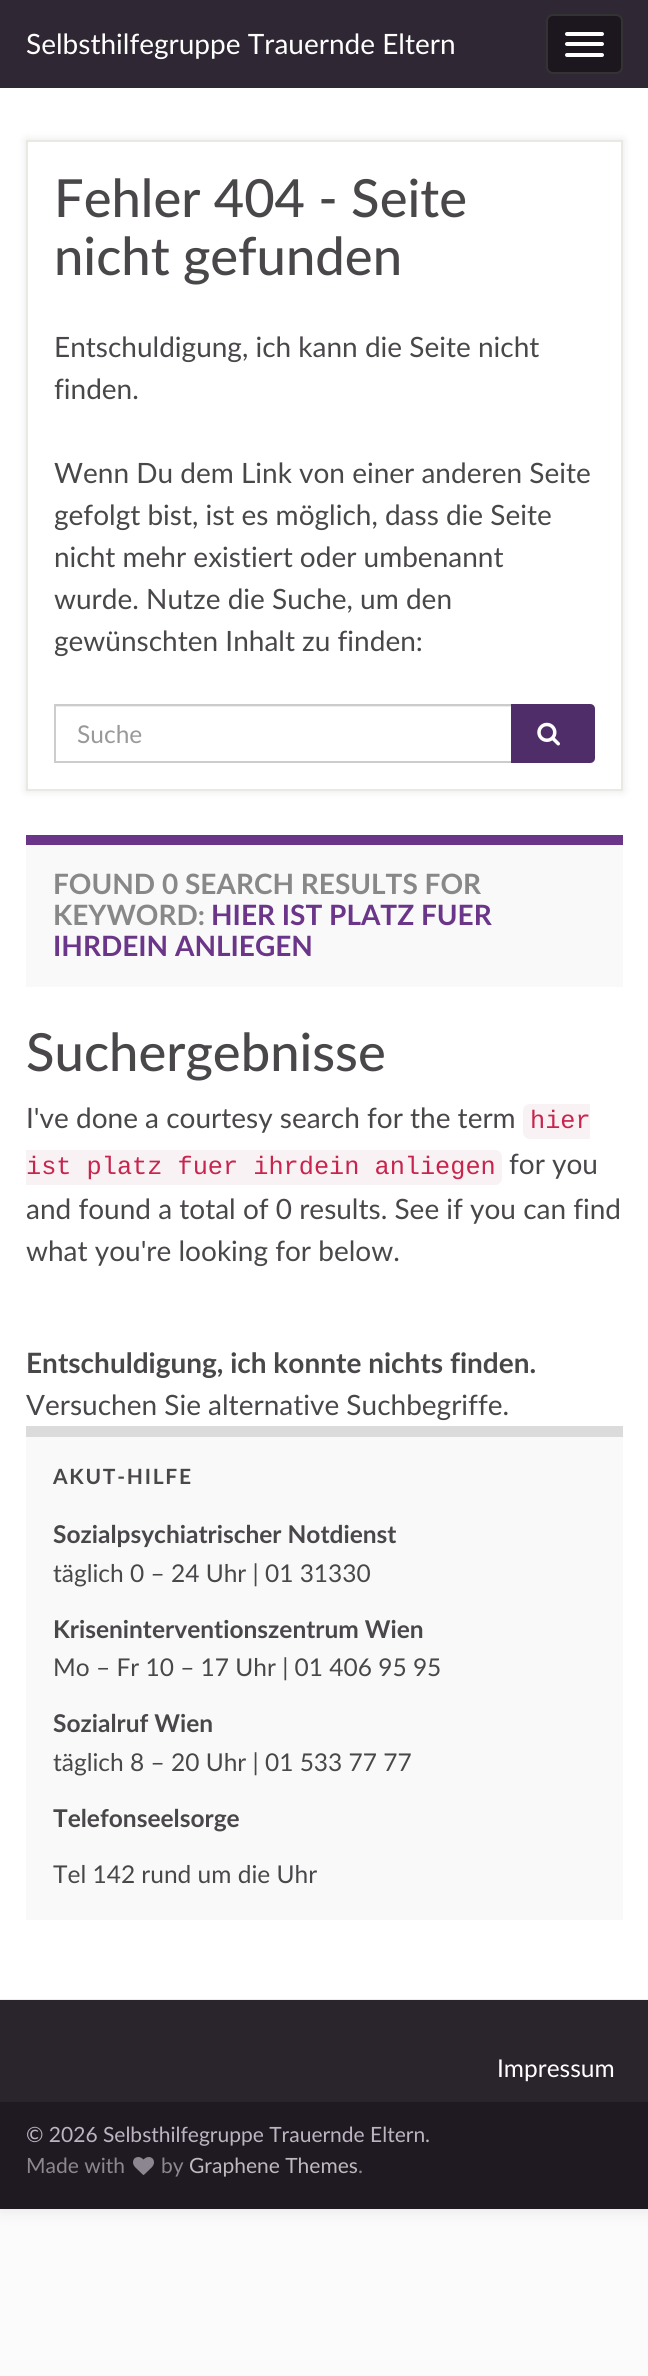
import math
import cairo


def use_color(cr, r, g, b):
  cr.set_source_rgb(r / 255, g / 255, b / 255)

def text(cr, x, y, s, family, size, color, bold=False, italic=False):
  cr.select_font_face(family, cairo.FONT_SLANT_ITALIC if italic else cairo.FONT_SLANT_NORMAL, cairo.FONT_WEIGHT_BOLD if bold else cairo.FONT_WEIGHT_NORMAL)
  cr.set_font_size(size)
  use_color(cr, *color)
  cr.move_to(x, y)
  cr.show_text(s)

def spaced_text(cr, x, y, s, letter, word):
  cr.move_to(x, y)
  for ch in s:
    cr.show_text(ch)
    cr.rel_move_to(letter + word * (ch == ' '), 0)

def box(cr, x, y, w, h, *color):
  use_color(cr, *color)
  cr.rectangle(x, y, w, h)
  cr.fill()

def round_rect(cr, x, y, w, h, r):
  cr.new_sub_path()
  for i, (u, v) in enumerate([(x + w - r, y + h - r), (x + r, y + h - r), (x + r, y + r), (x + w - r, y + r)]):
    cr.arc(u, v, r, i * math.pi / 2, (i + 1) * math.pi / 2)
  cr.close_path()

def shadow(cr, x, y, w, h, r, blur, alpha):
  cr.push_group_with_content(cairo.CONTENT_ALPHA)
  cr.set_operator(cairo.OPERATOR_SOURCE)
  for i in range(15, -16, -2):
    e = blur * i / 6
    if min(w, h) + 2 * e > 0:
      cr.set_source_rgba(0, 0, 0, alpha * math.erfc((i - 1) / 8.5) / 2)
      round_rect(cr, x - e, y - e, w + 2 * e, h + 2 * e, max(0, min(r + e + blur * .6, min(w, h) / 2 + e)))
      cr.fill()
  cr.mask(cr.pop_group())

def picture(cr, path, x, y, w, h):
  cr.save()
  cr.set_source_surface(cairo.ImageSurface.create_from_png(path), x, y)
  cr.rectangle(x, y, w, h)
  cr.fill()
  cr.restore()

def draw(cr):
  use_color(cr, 251, 251, 251)
  cr.paint()
  use_color(cr, 0, 0, 0)
  shadow(cr, 0, 0, 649, 2209, 0, 9, 0.1)
  box(cr, 0, 0, 648, 88, 47, 39, 51)
  use_color(cr, 28, 23, 31)
  round_rect(cr, 547, 15, 75, 58, 6)
  cr.fill_preserve()
  use_color(cr, 51, 51, 51)
  cr.stroke()
  use_color(cr, 255, 255, 255)
  round_rect(cr, 565, 32, 39, 4, 2)
  cr.fill()
  round_rect(cr, 565, 42, 39, 4, 2)
  cr.fill()
  round_rect(cr, 565, 53, 39, 4, 2)
  cr.fill()
  box(cr, 0, 88, 648, 1911, 255, 255, 255)
  use_color(cr, 0, 0, 0)
  shadow(cr, 26, 140, 597, 651, 0, 4.5, 0.1)
  use_color(cr, 255, 255, 255)
  cr.rectangle(27, 141, 595, 649)
  cr.fill_preserve()
  use_color(cr, 233, 232, 227)
  cr.stroke()
  box(cr, 56, 706, 455, 1, 236, 236, 236)
  cr.rectangle(55, 705, 457, 57)
  use_color(cr, 204, 204, 204)
  cr.stroke()
  use_color(cr, 79, 45, 105)
  cr.new_path()
  cr.move_to(511, 704)
  cr.line_to(590, 704)
  cr.curve_to(593, 704, 595, 706, 595, 709)
  cr.line_to(595, 758)
  cr.curve_to(595, 761, 593, 763, 590, 763)
  cr.line_to(511, 763)
  cr.close_path()
  cr.fill()
  picture(cr, "img_01.png", 537, 722, 23, 24)
  box(cr, 26, 845, 597, 142, 249, 249, 249)
  box(cr, 26, 835, 597, 10, 107, 53, 137)
  use_color(cr, 249, 242, 244)
  cr.new_path()
  cr.move_to(530, 1104)
  cr.line_to(590, 1104)
  cr.line_to(590, 1139)
  cr.line_to(530, 1139)
  cr.curve_to(526, 1139, 523, 1136, 523, 1132)
  cr.line_to(523, 1111)
  cr.curve_to(523, 1107, 526, 1104, 530, 1104)
  cr.close_path()
  cr.fill()
  cr.new_path()
  cr.move_to(26, 1150)
  cr.line_to(495, 1150)
  cr.curve_to(499, 1150, 502, 1153, 502, 1157)
  cr.line_to(502, 1178)
  cr.curve_to(502, 1182, 499, 1185, 495, 1185)
  cr.line_to(26, 1185)
  cr.close_path()
  cr.fill()
  box(cr, 26, 1437, 597, 483, 249, 249, 249)
  box(cr, 26, 1426, 597, 11, 219, 219, 219)
  box(cr, 0, 1999, 648, 1, 238, 238, 238)
  box(cr, 0, 2102, 648, 107, 31, 26, 34)
  box(cr, 0, 2000, 648, 102, 42, 37, 45)
  picture(cr, "img_02.png", 133, 2157, 21, 18)
  text(cr, 26, 54, "Selbsthilfegruppe Trauernde Eltern", "Lato", 28, (255, 255, 255))
  text(cr, 54, 217, "Fehler 404 - Seite", "Lato Medium", 52.5, (74, 71, 75))
  text(cr, 54, 275, "nicht gefunden", "Lato Medium", 52.5, (74, 71, 75))
  text(cr, 54, 357, "Entschuldigung, ich kann die Seite nicht", "Lato", 28, (74, 71, 75))
  text(cr, 54, 399, "finden.", "Lato", 28, (74, 71, 75))
  text(cr, 54, 483, "Wenn Du dem Link von einer anderen Seite", "Lato", 28, (74, 71, 75))
  text(cr, 54, 525, "gefolgt bist, ist es möglich, dass die Seite", "Lato", 28, (74, 71, 75))
  text(cr, 54, 567, "nicht mehr existiert oder umbenannt", "Lato", 28, (74, 71, 75))
  text(cr, 54, 609, "wurde. Nutze die Suche, um den", "Lato", 28, (74, 71, 75))
  text(cr, 54, 651, "gewünschten Inhalt zu finden:", "Lato", 28, (74, 71, 75))
  text(cr, 77, 743, "Suche", "Lato", 24.5, (153, 153, 153))
  text(cr, 53, 894, "FOUND 0 SEARCH RESULTS FOR", "Lato", 28, (136, 136, 136), bold=True)
  text(cr, 53, 925, "KEYWORD:", "Lato", 28, (136, 136, 136), bold=True)
  text(cr, 211, 925, "HIER IST PLATZ FUER", "Lato", 28, (107, 53, 137), bold=True)
  text(cr, 53, 956, "IHRDEIN ANLIEGEN", "Lato", 28, (107, 53, 137), bold=True)
  text(cr, 26, 1071, "Suchergebnisse", "Lato Medium", 52.5, (74, 71, 75))
  text(cr, 26, 1128, "I've done a courtesy search for the term", "Lato", 28, (74, 71, 75))
  text(cr, 530, 1128, "hier", "Liberation Mono", 25.25, (199, 37, 78))
  text(cr, 26, 1174, "ist platz fuer ihrdein anliegen", "Liberation Mono", 25.25, (199, 37, 78))
  text(cr, 509, 1174, "for you", "Lato", 28, (74, 71, 75))
  text(cr, 26, 1219, "and found a total of 0 results. See if you can find", "Lato", 28, (74, 71, 75))
  text(cr, 26, 1261, "what you're looking for below.", "Lato", 28, (74, 71, 75))
  text(cr, 26, 1373, "Entschuldigung, ich konnte nichts finden.", "Lato", 28, (74, 71, 75), bold=True)
  text(cr, 26, 1415, "Versuchen Sie alternative Suchbegriffe.", "Lato", 28, (74, 71, 75))
  cr.select_font_face("Lato", cairo.FONT_SLANT_NORMAL, cairo.FONT_WEIGHT_BOLD)
  cr.set_font_size(21)
  spaced_text(cr, 53, 1484, "AKUT-HILFE", 1.75, 0)
  text(cr, 53, 1543, "Sozialpsychiatrischer Notdienst", "Lato", 24.5, (74, 71, 75), bold=True)
  text(cr, 53, 1582, "täglich 0 – 24 Uhr | 01 31330", "Lato", 24.5, (74, 71, 75))
  text(cr, 53, 1638, "Kriseninterventionszentrum Wien", "Lato", 24.5, (74, 71, 75), bold=True)
  text(cr, 53, 1676, "Mo – Fr 10 – 17 Uhr | 01 406 95 95", "Lato", 24.5, (74, 71, 75))
  text(cr, 53, 1732, "Sozialruf Wien", "Lato", 24.5, (74, 71, 75), bold=True)
  text(cr, 53, 1771, "täglich 8 – 20 Uhr | 01 533 77 77", "Lato", 24.5, (74, 71, 75))
  text(cr, 53, 1827, "Telefonseelsorge", "Lato", 24.5, (74, 71, 75), bold=True)
  text(cr, 53, 1883, "Tel 142 rund um die Uhr", "Lato", 24.5, (74, 71, 75))
  text(cr, 497, 2077, "Impressum", "Lato", 24.5, (255, 255, 255))
  text(cr, 26, 2142, "© 2026 Selbsthilfegruppe Trauernde Eltern.", "Lato", 21, (188, 180, 193))
  text(cr, 26, 2173, "Made with", "Lato", 21, (141, 134, 145))
  text(cr, 161, 2173, "by", "Lato", 21, (141, 134, 145))
  text(cr, 189, 2173, "Graphene Themes", "Lato", 21, (188, 186, 189))
  text(cr, 358, 2173, ".", "Lato", 21, (141, 134, 145))


surface = cairo.ImageSurface(cairo.FORMAT_RGB24, 648, 2376)
cr = cairo.Context(surface)
options = cairo.FontOptions()
options.set_hint_metrics(cairo.HINT_METRICS_OFF)
options.set_hint_style(cairo.HINT_STYLE_NONE)
cr.set_font_options(options)
cr.set_miter_limit(4)
draw(cr)
surface.write_to_png("out.png")
